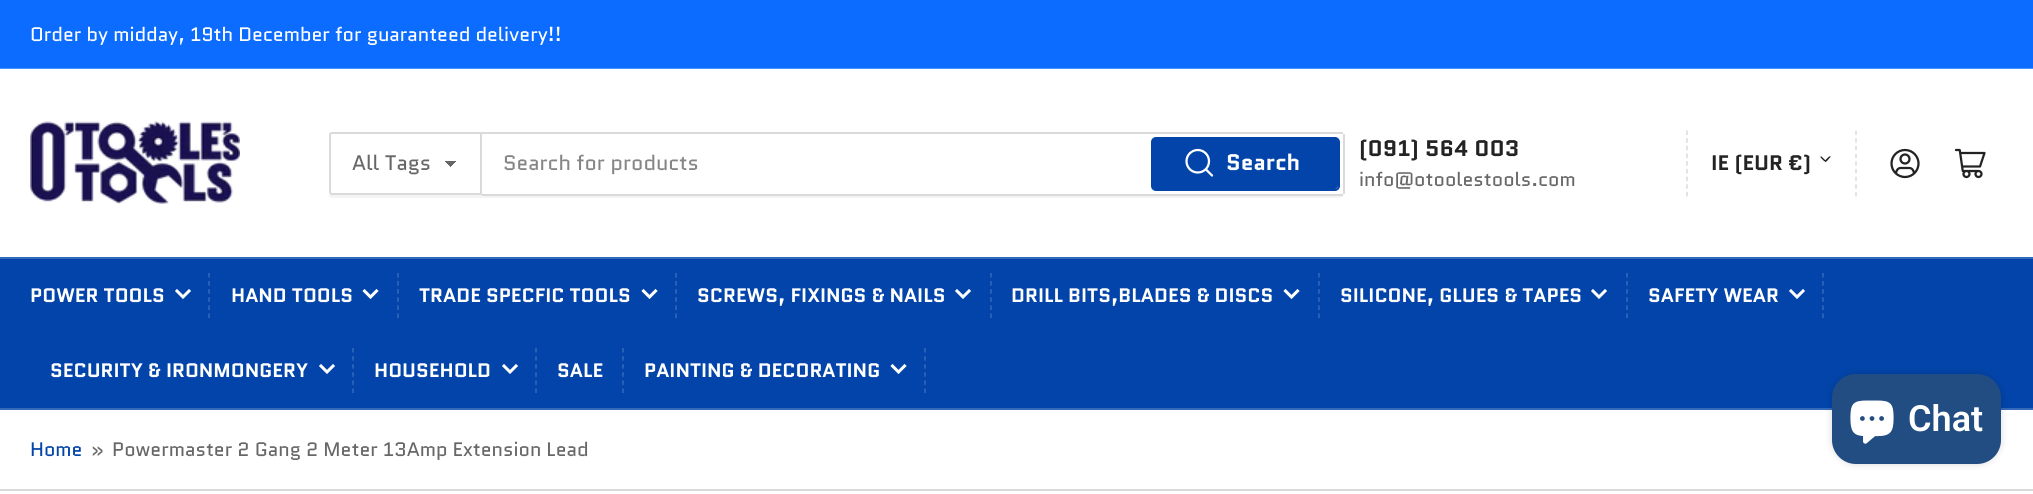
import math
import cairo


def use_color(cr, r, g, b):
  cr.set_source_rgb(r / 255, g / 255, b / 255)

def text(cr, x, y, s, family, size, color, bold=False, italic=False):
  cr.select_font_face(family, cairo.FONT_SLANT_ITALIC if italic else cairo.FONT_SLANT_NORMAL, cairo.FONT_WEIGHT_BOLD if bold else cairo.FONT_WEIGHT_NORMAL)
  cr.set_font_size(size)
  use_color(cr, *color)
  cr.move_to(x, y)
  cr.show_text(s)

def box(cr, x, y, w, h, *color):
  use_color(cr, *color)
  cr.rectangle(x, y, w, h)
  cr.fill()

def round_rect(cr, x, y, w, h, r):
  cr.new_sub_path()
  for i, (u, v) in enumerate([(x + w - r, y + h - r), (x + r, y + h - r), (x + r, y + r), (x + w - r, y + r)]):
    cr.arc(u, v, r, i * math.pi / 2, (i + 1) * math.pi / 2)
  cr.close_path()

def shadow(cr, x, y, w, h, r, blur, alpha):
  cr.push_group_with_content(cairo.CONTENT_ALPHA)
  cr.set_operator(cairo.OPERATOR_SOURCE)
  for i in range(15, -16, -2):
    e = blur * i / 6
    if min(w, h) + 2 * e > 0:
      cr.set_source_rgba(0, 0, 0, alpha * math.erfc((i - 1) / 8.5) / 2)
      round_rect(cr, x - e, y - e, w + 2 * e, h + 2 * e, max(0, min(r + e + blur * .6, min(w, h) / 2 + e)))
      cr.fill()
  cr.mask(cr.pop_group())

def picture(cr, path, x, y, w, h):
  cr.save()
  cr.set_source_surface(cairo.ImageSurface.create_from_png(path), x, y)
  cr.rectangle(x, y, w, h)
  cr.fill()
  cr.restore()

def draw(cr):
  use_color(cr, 255, 255, 255)
  cr.paint()
  box(cr, 0, 0, 2033, 68, 11, 108, 255)
  box(cr, 0, 68, 2033, 1, 72, 145, 255)
  picture(cr, "img_01.png", 30, 121, 210, 83)
  round_rect(cr, 330, 133, 151, 61, 2)
  use_color(cr, 218, 218, 218)
  cr.stroke()
  use_color(cr, 244, 244, 244)
  cr.new_path()
  cr.move_to(329, 194)
  cr.curve_to(329, 196, 329, 198, 332, 198)
  cr.line_to(482, 198)
  cr.line_to(482, 135)
  cr.line_to(482, 195)
  cr.line_to(332, 195)
  cr.curve_to(330, 195, 330, 194, 329, 194)
  cr.close_path()
  cr.fill()
  use_color(cr, 255, 255, 255)
  cr.new_path()
  cr.move_to(332, 132)
  cr.line_to(482, 132)
  cr.line_to(482, 195)
  cr.line_to(332, 195)
  cr.curve_to(330.5, 195, 329, 193.5, 329, 192)
  cr.line_to(329, 135)
  cr.curve_to(329, 133.5, 330.5, 132, 332, 132)
  cr.close_path()
  cr.fill()
  gradient = cairo.LinearGradient(450, 160, 458, 167)
  gradient.add_color_stop_rgba(0.5, 0.404, 0.404, 0.404, 1)
  gradient.add_color_stop_rgba(0.5, 1, 1, 1, 1)
  cr.set_source(gradient)
  cr.rectangle(450, 161, 8, 6)
  cr.fill()
  gradient = cairo.LinearGradient(443, 167, 450, 160)
  gradient.add_color_stop_rgba(0.5, 1, 1, 1, 1)
  gradient.add_color_stop_rgba(0.5, 0.404, 0.404, 0.404, 1)
  cr.set_source(gradient)
  cr.rectangle(443, 161, 7, 5)
  cr.fill()
  cr.new_path()
  cr.move_to(332, 133)
  cr.line_to(481, 133)
  cr.line_to(481, 194)
  cr.line_to(332, 194)
  cr.curve_to(331, 194, 330, 193, 330, 192)
  cr.line_to(330, 135)
  cr.curve_to(330, 134, 331, 133, 332, 133)
  cr.close_path()
  use_color(cr, 218, 218, 218)
  cr.stroke()
  use_color(cr, 244, 244, 244)
  cr.new_path()
  cr.move_to(482, 195)
  cr.line_to(482, 198)
  cr.line_to(1341, 198)
  cr.line_to(1343, 197)
  cr.line_to(1344, 192)
  cr.curve_to(1344, 194, 1343, 195, 1341, 195)
  cr.close_path()
  cr.fill()
  box(cr, 482, 132, 861, 2, 218, 218, 218)
  box(cr, 1343, 134, 2, 60, 218, 218, 218)
  box(cr, 482, 194, 861, 2, 218, 218, 218)
  round_rect(cr, 1152, 138, 187, 52, 4)
  use_color(cr, 2, 68, 169)
  cr.stroke()
  round_rect(cr, 1152, 138, 186, 51, 3)
  cr.fill()
  picture(cr, "img_02.png", 1185, 148, 29, 29)
  cr.new_path()
  cr.move_to(1856, 130.5)
  cr.line_to(1856, 196.5)
  use_color(cr, 218, 218, 218)
  cr.set_line_width(1.5)
  cr.set_dash([4.5, 3.18])
  cr.stroke()
  cr.new_path()
  cr.move_to(1687, 130.5)
  cr.line_to(1687, 196.5)
  cr.stroke()
  use_color(cr, 35, 35, 35)
  cr.new_path()
  cr.move_to(1821.5, 156.5)
  cr.line_to(1825, 160)
  cr.curve_to(1827, 161.5, 1826, 162.5, 1824, 161)
  cr.curve_to(1823.5, 160.5, 1819.5, 157, 1820.5, 156.5)
  cr.close_path()
  cr.fill()
  cr.new_path()
  cr.move_to(1825, 160.5)
  cr.line_to(1828.5, 157)
  cr.curve_to(1830.5, 155.5, 1831.5, 156.5, 1829.5, 158)
  cr.curve_to(1829, 158.5, 1826, 163, 1825, 161.5)
  cr.close_path()
  cr.fill()
  picture(cr, "img_03.png", 1890, 148, 30, 31)
  picture(cr, "img_04.png", 1954, 148, 32, 31)
  box(cr, 0, 259, 2033, 149, 2, 68, 169)
  box(cr, 0, 257, 2033, 2, 53, 105, 186)
  box(cr, 0, 408, 2033, 2, 53, 105, 186)
  cr.new_path()
  cr.move_to(189, 291)
  cr.line_to(183, 297)
  cr.line_to(177, 291)
  use_color(cr, 255, 255, 255)
  cr.set_line_width(3)
  cr.set_line_cap(cairo.LINE_CAP_SQUARE)
  cr.set_dash([])
  cr.stroke()
  cr.new_path()
  cr.move_to(209, 273)
  cr.line_to(209, 318)
  use_color(cr, 53, 105, 186)
  cr.set_line_width(1.5)
  cr.set_line_cap(cairo.LINE_CAP_BUTT)
  cr.set_dash([4.5, 3.6])
  cr.stroke()
  cr.new_path()
  cr.move_to(376.5, 291)
  cr.line_to(370.5, 297)
  cr.line_to(364.5, 291)
  use_color(cr, 255, 255, 255)
  cr.set_line_width(3)
  cr.set_line_cap(cairo.LINE_CAP_SQUARE)
  cr.set_dash([])
  cr.stroke()
  cr.new_path()
  cr.move_to(398, 273)
  cr.line_to(398, 318)
  use_color(cr, 53, 105, 186)
  cr.set_line_width(1.5)
  cr.set_line_cap(cairo.LINE_CAP_BUTT)
  cr.set_dash([4.5, 3.6])
  cr.stroke()
  cr.new_path()
  cr.move_to(655.5, 291)
  cr.line_to(649.5, 297)
  cr.line_to(643.5, 291)
  use_color(cr, 255, 255, 255)
  cr.set_line_width(3)
  cr.set_line_cap(cairo.LINE_CAP_SQUARE)
  cr.set_dash([])
  cr.stroke()
  cr.new_path()
  cr.move_to(676, 273)
  cr.line_to(676, 318)
  use_color(cr, 53, 105, 186)
  cr.set_line_width(1.5)
  cr.set_line_cap(cairo.LINE_CAP_BUTT)
  cr.set_dash([4.5, 3.6])
  cr.stroke()
  cr.new_path()
  cr.move_to(969, 291)
  cr.line_to(963, 297)
  cr.line_to(957, 291)
  use_color(cr, 255, 255, 255)
  cr.set_line_width(3)
  cr.set_line_cap(cairo.LINE_CAP_SQUARE)
  cr.set_dash([])
  cr.stroke()
  cr.new_path()
  cr.move_to(991, 273)
  cr.line_to(991, 318)
  use_color(cr, 53, 105, 186)
  cr.set_line_width(1.5)
  cr.set_line_cap(cairo.LINE_CAP_BUTT)
  cr.set_dash([4.5, 3.6])
  cr.stroke()
  cr.new_path()
  cr.move_to(1297.5, 291)
  cr.line_to(1291.5, 297)
  cr.line_to(1285.5, 291)
  use_color(cr, 255, 255, 255)
  cr.set_line_width(3)
  cr.set_line_cap(cairo.LINE_CAP_SQUARE)
  cr.set_dash([])
  cr.stroke()
  cr.new_path()
  cr.move_to(1319, 273)
  cr.line_to(1319, 318)
  use_color(cr, 53, 105, 186)
  cr.set_line_width(1.5)
  cr.set_line_cap(cairo.LINE_CAP_BUTT)
  cr.set_dash([4.5, 3.6])
  cr.stroke()
  cr.new_path()
  cr.move_to(1605, 291)
  cr.line_to(1599, 297)
  cr.line_to(1593, 291)
  use_color(cr, 255, 255, 255)
  cr.set_line_width(3)
  cr.set_line_cap(cairo.LINE_CAP_SQUARE)
  cr.set_dash([])
  cr.stroke()
  cr.new_path()
  cr.move_to(1627, 273)
  cr.line_to(1627, 318)
  use_color(cr, 53, 105, 186)
  cr.set_line_width(1.5)
  cr.set_line_cap(cairo.LINE_CAP_BUTT)
  cr.set_dash([4.5, 3.6])
  cr.stroke()
  cr.new_path()
  cr.move_to(1803, 291)
  cr.line_to(1797, 297)
  cr.line_to(1791, 291)
  use_color(cr, 255, 255, 255)
  cr.set_line_width(3)
  cr.set_line_cap(cairo.LINE_CAP_SQUARE)
  cr.set_dash([])
  cr.stroke()
  cr.new_path()
  cr.move_to(1823, 273)
  cr.line_to(1823, 318)
  use_color(cr, 53, 105, 186)
  cr.set_line_width(1.5)
  cr.set_line_cap(cairo.LINE_CAP_BUTT)
  cr.set_dash([4.5, 3.6])
  cr.stroke()
  cr.new_path()
  cr.move_to(333, 366)
  cr.line_to(327, 372)
  cr.line_to(321, 366)
  use_color(cr, 255, 255, 255)
  cr.set_line_width(3)
  cr.set_line_cap(cairo.LINE_CAP_SQUARE)
  cr.set_dash([])
  cr.stroke()
  cr.new_path()
  cr.move_to(353, 348)
  cr.line_to(353, 393)
  use_color(cr, 53, 105, 186)
  cr.set_line_width(1.5)
  cr.set_line_cap(cairo.LINE_CAP_BUTT)
  cr.set_dash([4.5, 3.6])
  cr.stroke()
  cr.new_path()
  cr.move_to(516, 366)
  cr.line_to(510, 372)
  cr.line_to(504, 366)
  use_color(cr, 255, 255, 255)
  cr.set_line_width(3)
  cr.set_line_cap(cairo.LINE_CAP_SQUARE)
  cr.set_dash([])
  cr.stroke()
  cr.new_path()
  cr.move_to(536, 348)
  cr.line_to(536, 393)
  use_color(cr, 53, 105, 186)
  cr.set_line_width(1.5)
  cr.set_line_cap(cairo.LINE_CAP_BUTT)
  cr.set_dash([4.5, 3.6])
  cr.stroke()
  cr.new_path()
  cr.move_to(623, 348)
  cr.line_to(623, 393)
  cr.stroke()
  cr.new_path()
  cr.move_to(904.5, 366)
  cr.line_to(898.5, 372)
  cr.line_to(892.5, 366)
  use_color(cr, 255, 255, 255)
  cr.set_line_width(3)
  cr.set_line_cap(cairo.LINE_CAP_SQUARE)
  cr.set_dash([])
  cr.stroke()
  cr.new_path()
  cr.move_to(925, 348)
  cr.line_to(925, 393)
  use_color(cr, 53, 105, 186)
  cr.set_line_width(1.5)
  cr.set_line_cap(cairo.LINE_CAP_BUTT)
  cr.set_dash([4.5, 3.6])
  cr.stroke()
  use_color(cr, 0, 0, 0)
  shadow(cr, 1832, 374, 169, 90, 24, 4, 0.15)
  use_color(cr, 34, 77, 130)
  round_rect(cr, 1832, 374, 169, 90, 24)
  cr.fill()
  picture(cr, "img_05.png", 1850, 400, 44, 44)
  box(cr, 0, 489, 2033, 2, 218, 218, 218)
  text(cr, 30, 41, "Order by midday, 19th December for guaranteed delivery!!", "Quantico", 19.5, (255, 255, 255))
  text(cr, 352, 170, "All Tags", "Quantico", 21, (103, 103, 103))
  text(cr, 503, 170, "Search for products", "Quantico", 21, (133, 133, 133))
  text(cr, 1226, 170, "Search", "Quantico", 22.5, (255, 255, 255), bold=True)
  text(cr, 1359, 156, "(091) 564 003", "Quantico", 22.5, (35, 35, 35), bold=True)
  text(cr, 1359, 186, "info@otoolestools.com", "Quantico", 19.5, (103, 103, 103))
  text(cr, 1711, 170, "IE (EUR €)", "Quantico", 21, (35, 35, 35), bold=True)
  text(cr, 30, 302, "POWER TOOLS", "Quantico", 19.5, (255, 255, 255), bold=True)
  text(cr, 231, 302, "HAND TOOLS", "Quantico", 19.5, (255, 255, 255), bold=True)
  text(cr, 419, 302, "TRADE SPECFIC TOOLS", "Quantico", 19.5, (255, 255, 255), bold=True)
  text(cr, 697, 302, "SCREWS, FIXINGS & NAILS", "Quantico", 19.5, (255, 255, 255), bold=True)
  text(cr, 1011, 302, "DRILL BITS,BLADES & DISCS", "Quantico", 19.5, (255, 255, 255), bold=True)
  text(cr, 1340, 302, "SILICONE, GLUES & TAPES", "Quantico", 19.5, (255, 255, 255), bold=True)
  text(cr, 1648, 302, "SAFETY WEAR", "Quantico", 19.5, (255, 255, 255), bold=True)
  text(cr, 50, 377, "SECURITY & IRONMONGERY", "Quantico", 19.5, (255, 255, 255), bold=True)
  text(cr, 374, 377, "HOUSEHOLD", "Quantico", 19.5, (255, 255, 255), bold=True)
  text(cr, 557, 377, "SALE", "Quantico", 19.5, (255, 255, 255), bold=True)
  text(cr, 644, 377, "PAINTING & DECORATING", "Quantico", 19.5, (255, 255, 255), bold=True)
  text(cr, 1908, 431, "Chat", "Roboto SemiBold", 36, (255, 255, 255))
  text(cr, 30, 456, "Home", "Quantico", 19.5, (2, 68, 169))
  text(cr, 91, 456, "»", "Quantico", 19.5, (103, 103, 103))
  text(cr, 112, 456, "Powermaster 2 Gang 2 Meter 13Amp Extension Lead", "Quantico", 19.5, (103, 103, 103))


surface = cairo.ImageSurface(cairo.FORMAT_RGB24, 2033, 494)
cr = cairo.Context(surface)
options = cairo.FontOptions()
options.set_hint_metrics(cairo.HINT_METRICS_OFF)
options.set_hint_style(cairo.HINT_STYLE_NONE)
cr.set_font_options(options)
cr.set_miter_limit(4)
draw(cr)
surface.write_to_png("out.png")
